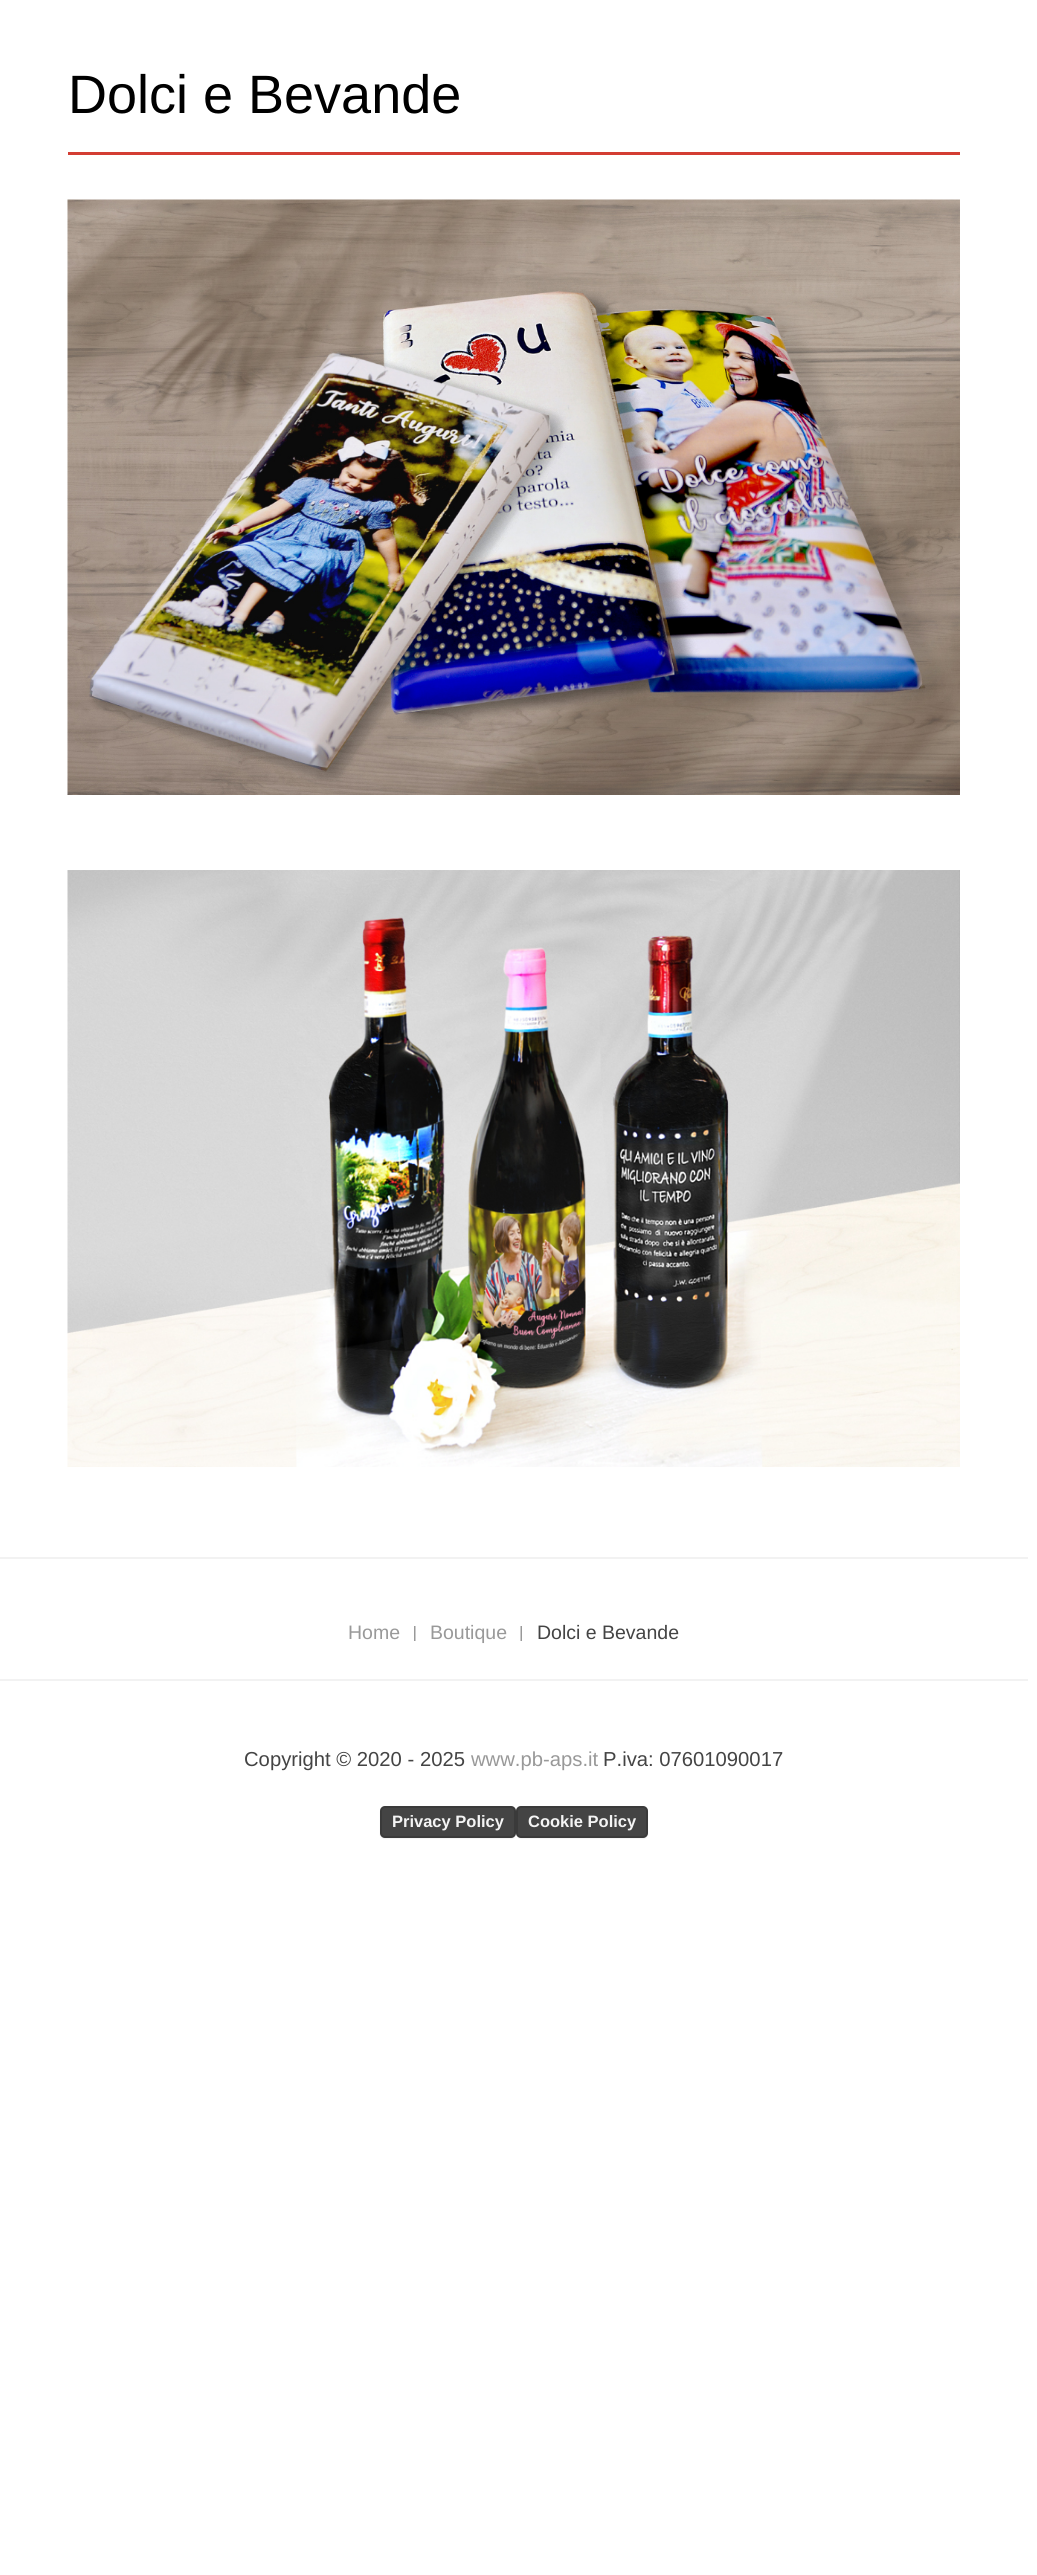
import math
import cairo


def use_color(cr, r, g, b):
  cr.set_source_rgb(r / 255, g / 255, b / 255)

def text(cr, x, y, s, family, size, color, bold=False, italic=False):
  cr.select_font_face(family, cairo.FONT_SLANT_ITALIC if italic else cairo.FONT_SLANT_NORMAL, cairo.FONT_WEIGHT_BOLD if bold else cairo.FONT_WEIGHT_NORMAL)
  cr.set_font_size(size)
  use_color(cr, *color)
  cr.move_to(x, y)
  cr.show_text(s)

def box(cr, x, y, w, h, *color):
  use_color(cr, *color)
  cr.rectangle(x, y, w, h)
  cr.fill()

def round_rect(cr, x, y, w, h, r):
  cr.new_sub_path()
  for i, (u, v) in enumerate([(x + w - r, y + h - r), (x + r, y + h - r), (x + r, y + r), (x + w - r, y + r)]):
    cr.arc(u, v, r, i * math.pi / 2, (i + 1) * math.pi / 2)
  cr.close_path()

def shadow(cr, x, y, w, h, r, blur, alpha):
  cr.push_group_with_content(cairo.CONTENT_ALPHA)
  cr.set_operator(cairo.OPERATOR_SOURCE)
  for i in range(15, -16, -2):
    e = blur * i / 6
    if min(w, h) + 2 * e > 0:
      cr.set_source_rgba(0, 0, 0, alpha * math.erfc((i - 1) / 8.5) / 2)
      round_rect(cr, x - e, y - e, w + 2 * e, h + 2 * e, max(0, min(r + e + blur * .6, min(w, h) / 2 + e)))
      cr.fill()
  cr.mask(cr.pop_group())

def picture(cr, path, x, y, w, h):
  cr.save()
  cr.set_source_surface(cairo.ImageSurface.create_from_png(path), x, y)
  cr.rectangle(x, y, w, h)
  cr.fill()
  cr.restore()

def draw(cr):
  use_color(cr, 255, 255, 255)
  cr.paint()
  box(cr, 0, 1557, 1028, 2, 242, 242, 242)
  box(cr, 68, 152, 892, 3, 211, 61, 51)
  picture(cr, "img_01.png", 67, 199, 893, 596)
  picture(cr, "img_02.png", 67, 870, 893, 597)
  box(cr, 0, 1679, 1028, 2, 242, 242, 242)
  picture(cr, "img_03.png", 414, 1626, 2, 15)
  picture(cr, "img_04.png", 520, 1626, 2, 15)
  use_color(cr, 0, 0, 0)
  shadow(cr, 381, 1809, 134, 29, 3, 1, 0.15)
  use_color(cr, 68, 68, 68)
  round_rect(cr, 380, 1806, 136, 32, 5)
  cr.fill()
  round_rect(cr, 381, 1807, 134, 30, 4)
  cr.set_source_rgba(0, 0, 0, 0.15)
  cr.stroke()
  use_color(cr, 0, 0, 0)
  shadow(cr, 518, 1809, 129, 29, 3, 1, 0.15)
  use_color(cr, 68, 68, 68)
  round_rect(cr, 516, 1806, 132, 32, 5)
  cr.fill()
  round_rect(cr, 517, 1807, 130, 30, 4)
  cr.set_source_rgba(0, 0, 0, 0.15)
  cr.stroke()
  text(cr, 68, 113, "Dolci e Bevande", "Liberation Sans", 54, (0, 0, 0))
  text(cr, 348, 1639, "Home", "Liberation Sans", 19.5, (153, 153, 153))
  text(cr, 430, 1639, "Boutique", "Liberation Sans", 19.5, (153, 153, 153))
  text(cr, 537, 1639, "Dolci e Bevande", "Liberation Sans", 19.5, (68, 68, 68))
  text(cr, 244, 1766, "Copyright © 2020 - 2025", "Liberation Sans", 20.25, (68, 68, 68))
  text(cr, 471, 1766, "www.pb-aps.it", "Liberation Sans", 20.25, (153, 153, 153))
  text(cr, 603, 1766, "P.iva: 07601090017", "Liberation Sans", 20.25, (68, 68, 68))
  text(cr, 392, 1827, "Privacy Policy", "Liberation Sans", 16.5, (244, 244, 244), bold=True)
  text(cr, 528, 1827, "Cookie Policy", "Liberation Sans", 16.5, (244, 244, 244), bold=True)


surface = cairo.ImageSurface(cairo.FORMAT_RGB24, 1037, 2575)
cr = cairo.Context(surface)
options = cairo.FontOptions()
options.set_hint_metrics(cairo.HINT_METRICS_OFF)
options.set_hint_style(cairo.HINT_STYLE_NONE)
cr.set_font_options(options)
cr.set_miter_limit(4)
draw(cr)
surface.write_to_png("out.png")
